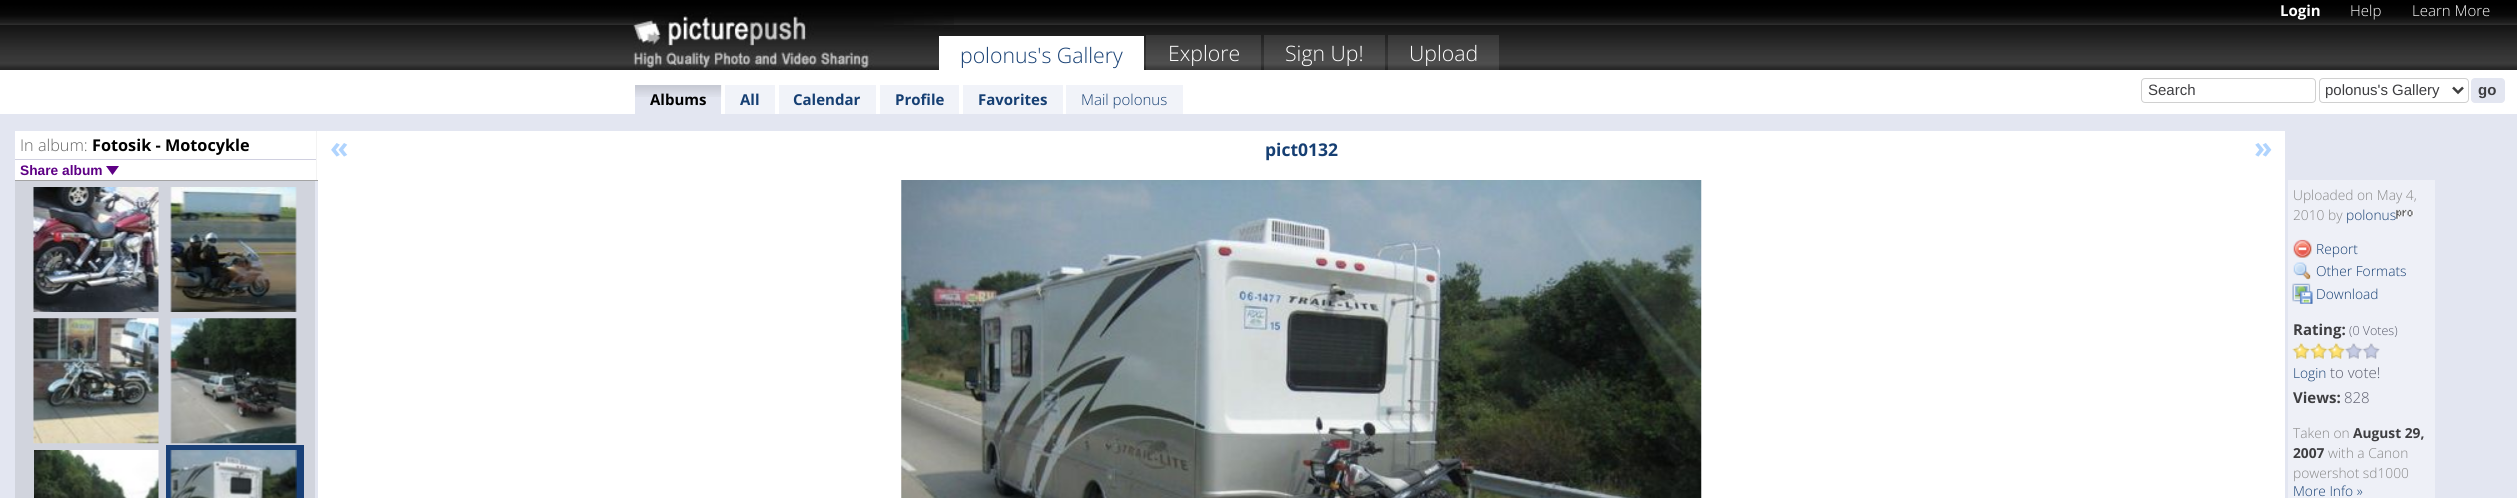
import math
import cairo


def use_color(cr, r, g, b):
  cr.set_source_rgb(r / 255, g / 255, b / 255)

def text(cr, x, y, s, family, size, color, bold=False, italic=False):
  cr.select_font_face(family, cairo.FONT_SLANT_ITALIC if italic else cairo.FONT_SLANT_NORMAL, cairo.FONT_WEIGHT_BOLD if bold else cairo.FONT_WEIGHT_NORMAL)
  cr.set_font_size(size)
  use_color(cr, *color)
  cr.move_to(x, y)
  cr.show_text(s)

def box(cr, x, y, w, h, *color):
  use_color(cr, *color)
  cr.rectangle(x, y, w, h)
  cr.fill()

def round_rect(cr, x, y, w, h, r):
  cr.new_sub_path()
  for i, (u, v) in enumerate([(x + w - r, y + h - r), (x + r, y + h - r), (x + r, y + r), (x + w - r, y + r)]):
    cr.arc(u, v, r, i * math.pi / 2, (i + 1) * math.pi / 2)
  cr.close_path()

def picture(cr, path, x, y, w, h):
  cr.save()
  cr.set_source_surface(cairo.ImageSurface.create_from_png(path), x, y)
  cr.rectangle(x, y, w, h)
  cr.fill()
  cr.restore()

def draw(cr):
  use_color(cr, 227, 230, 241)
  cr.paint()
  picture(cr, "img_01.png", 0, 0, 2517, 70)
  picture(cr, "img_02.png", 633, 12, 321, 58)
  box(cr, 939, 36, 205, 34, 255, 255, 255)
  cr.set_source_rgba(1, 1, 1, 0.1)
  cr.rectangle(1146, 35, 115, 35)
  cr.fill()
  cr.rectangle(1264, 35, 121, 35)
  cr.fill()
  cr.rectangle(1388, 35, 111, 35)
  cr.fill()
  box(cr, 0, 70, 2517, 44, 255, 255, 255)
  round_rect(cr, 2141.5, 78.5, 174, 24, 3.5)
  use_color(cr, 208, 208, 208)
  cr.set_line_width(1)
  cr.stroke()
  round_rect(cr, 2319.5, 78.5, 149, 24, 3.5)
  cr.stroke()
  cr.new_path()
  cr.move_to(2453, 87.5)
  cr.line_to(2458, 92.5)
  cr.line_to(2463, 87.5)
  use_color(cr, 62, 62, 62)
  cr.set_line_width(2.5)
  cr.stroke()
  use_color(cr, 227, 230, 241)
  round_rect(cr, 2471.5, 78.5, 33, 24, 3.5)
  cr.fill_preserve()
  cr.set_line_width(1)
  cr.stroke()
  box(cr, 635, 85, 86, 29, 227, 230, 241)
  picture(cr, "img_03.png", 635, 85, 87, 12)
  box(cr, 725, 85, 50, 29, 241, 243, 249)
  box(cr, 779, 85, 97, 29, 241, 243, 249)
  box(cr, 880, 85, 79, 29, 241, 243, 249)
  box(cr, 963, 85, 100, 29, 241, 243, 249)
  box(cr, 1066, 85, 117, 29, 241, 243, 249)
  box(cr, 15, 131, 303, 49, 255, 255, 255)
  box(cr, 316, 131, 1, 50, 243, 243, 243)
  box(cr, 15, 180, 303, 1, 164, 164, 164)
  box(cr, 15, 159, 301, 1, 208, 208, 224)
  use_color(cr, 94, 0, 133)
  cr.new_path()
  cr.move_to(106, 166)
  cr.line_to(119, 166)
  cr.line_to(112.5, 175)
  cr.close_path()
  cr.fill()
  box(cr, 15, 181, 300, 317, 209, 212, 221)
  picture(cr, "img_04.png", 33, 187, 126, 125)
  picture(cr, "img_05.png", 170, 187, 127, 125)
  picture(cr, "img_06.png", 33, 318, 126, 126)
  picture(cr, "img_07.png", 170, 318, 127, 126)
  picture(cr, "img_08.png", 34, 450, 125, 48)
  box(cr, 166, 445, 138, 53, 25, 64, 119)
  picture(cr, "img_09.png", 170, 450, 127, 48)
  box(cr, 318, 131, 1967, 367, 255, 255, 255)
  picture(cr, "img_10.png", 901, 180, 801, 318)
  box(cr, 2288, 180, 147, 318, 238, 240, 247)
  picture(cr, "img_11.png", 2396, 209, 18, 10)
  picture(cr, "img_12.png", 2293, 239, 19, 19)
  picture(cr, "img_13.png", 2293, 262, 18, 18)
  picture(cr, "img_14.png", 2292, 283, 21, 21)
  picture(cr, "img_15.png", 2292, 342, 18, 17)
  picture(cr, "img_16.png", 2310, 342, 18, 17)
  picture(cr, "img_17.png", 2327, 342, 18, 17)
  picture(cr, "img_18.png", 2345, 343, 18, 16)
  picture(cr, "img_19.png", 2362, 343, 18, 16)
  text(cr, 960, 63, "polonus's Gallery", "Open Sans Light", 21.25, (22, 63, 115))
  text(cr, 1168, 61, "Explore", "Open Sans Light", 21.25, (255, 255, 255))
  text(cr, 1285, 61, "Sign Up!", "Open Sans Light", 21.25, (255, 255, 255))
  text(cr, 1409, 61, "Upload", "Open Sans Light", 21.25, (255, 255, 255))
  text(cr, 2280, 16, "Login", "Open Sans", 15, (255, 255, 255), bold=True)
  text(cr, 2350, 16, "Help", "Open Sans Light", 15, (255, 255, 255))
  text(cr, 2412, 16, "Learn More", "Open Sans Light", 15, (255, 255, 255))
  text(cr, 2148, 95, "Search", "Liberation Sans", 15, (62, 62, 65))
  text(cr, 2325, 95, "polonus's Gallery", "Liberation Sans", 15, (62, 62, 65))
  text(cr, 2478, 95, "go", "Liberation Sans", 15, (62, 62, 65), bold=True)
  text(cr, 650, 105, "Albums", "Open Sans", 15, (0, 0, 0), bold=True)
  text(cr, 740, 105, "All", "Open Sans", 15, (22, 63, 115), bold=True)
  text(cr, 793, 105, "Calendar", "Open Sans", 15, (22, 63, 115), bold=True)
  text(cr, 895, 105, "Profile", "Open Sans", 15, (22, 63, 115), bold=True)
  text(cr, 978, 105, "Favorites", "Open Sans", 15, (22, 63, 115), bold=True)
  text(cr, 1081, 105, "Mail polonus", "Open Sans Light", 15, (22, 63, 115))
  text(cr, 20, 151, "In album:", "Open Sans Light", 16.25, (102, 102, 102))
  text(cr, 92, 151, "Fotosik - Motocykle", "Open Sans", 16.25, (0, 0, 0), bold=True)
  text(cr, 20, 175, "Share album", "Liberation Sans", 13.75, (94, 0, 133), bold=True)
  text(cr, 330, 158, "«", "Open Sans", 30, (176, 212, 254), bold=True)
  text(cr, 1265, 156, "pict0132", "Open Sans", 17.5, (22, 63, 115), bold=True)
  text(cr, 2254, 158, "»", "Open Sans", 30, (176, 212, 254), bold=True)
  text(cr, 2293, 200, "Uploaded on May 4,", "Open Sans Light", 13.75, (136, 136, 136))
  text(cr, 2293, 220, "2010 by", "Open Sans Light", 13.75, (136, 136, 136))
  text(cr, 2346, 220, "polonus", "Open Sans Light", 13.75, (22, 63, 115))
  text(cr, 2316, 254, "Report", "Open Sans Light", 13.75, (22, 63, 115))
  text(cr, 2316, 276, "Other Formats", "Open Sans Light", 13.75, (22, 63, 115))
  text(cr, 2316, 299, "Download", "Open Sans Light", 13.75, (22, 63, 115))
  text(cr, 2293, 335, "Rating:", "Open Sans", 15, (62, 62, 65), bold=True)
  text(cr, 2349, 335, "(0 Votes)", "Open Sans Light", 12.5, (90, 92, 108))
  text(cr, 2293, 378, "Login", "Open Sans Light", 13.75, (22, 63, 115))
  text(cr, 2330, 378, "to vote!", "Open Sans Light", 15, (90, 92, 108))
  text(cr, 2293, 403, "Views:", "Open Sans", 15, (62, 62, 65), bold=True)
  text(cr, 2344, 403, "828", "Open Sans Light", 15, (90, 92, 108))
  text(cr, 2293, 438, "Taken on", "Open Sans Light", 13.75, (136, 136, 136))
  text(cr, 2353, 438, "August 29,", "Open Sans", 13.75, (62, 62, 65), bold=True)
  text(cr, 2293, 458, "2007", "Open Sans", 13.75, (62, 62, 65), bold=True)
  text(cr, 2328, 458, "with a Canon", "Open Sans Light", 13.75, (136, 136, 136))
  text(cr, 2293, 478, "powershot sd1000", "Open Sans Light", 13.75, (136, 136, 136))
  text(cr, 2293, 496, "More Info »", "Open Sans Light", 13.75, (22, 63, 115))


surface = cairo.ImageSurface(cairo.FORMAT_RGB24, 2517, 498)
cr = cairo.Context(surface)
options = cairo.FontOptions()
options.set_hint_metrics(cairo.HINT_METRICS_OFF)
options.set_hint_style(cairo.HINT_STYLE_NONE)
cr.set_font_options(options)
cr.set_miter_limit(4)
draw(cr)
surface.write_to_png("out.png")
